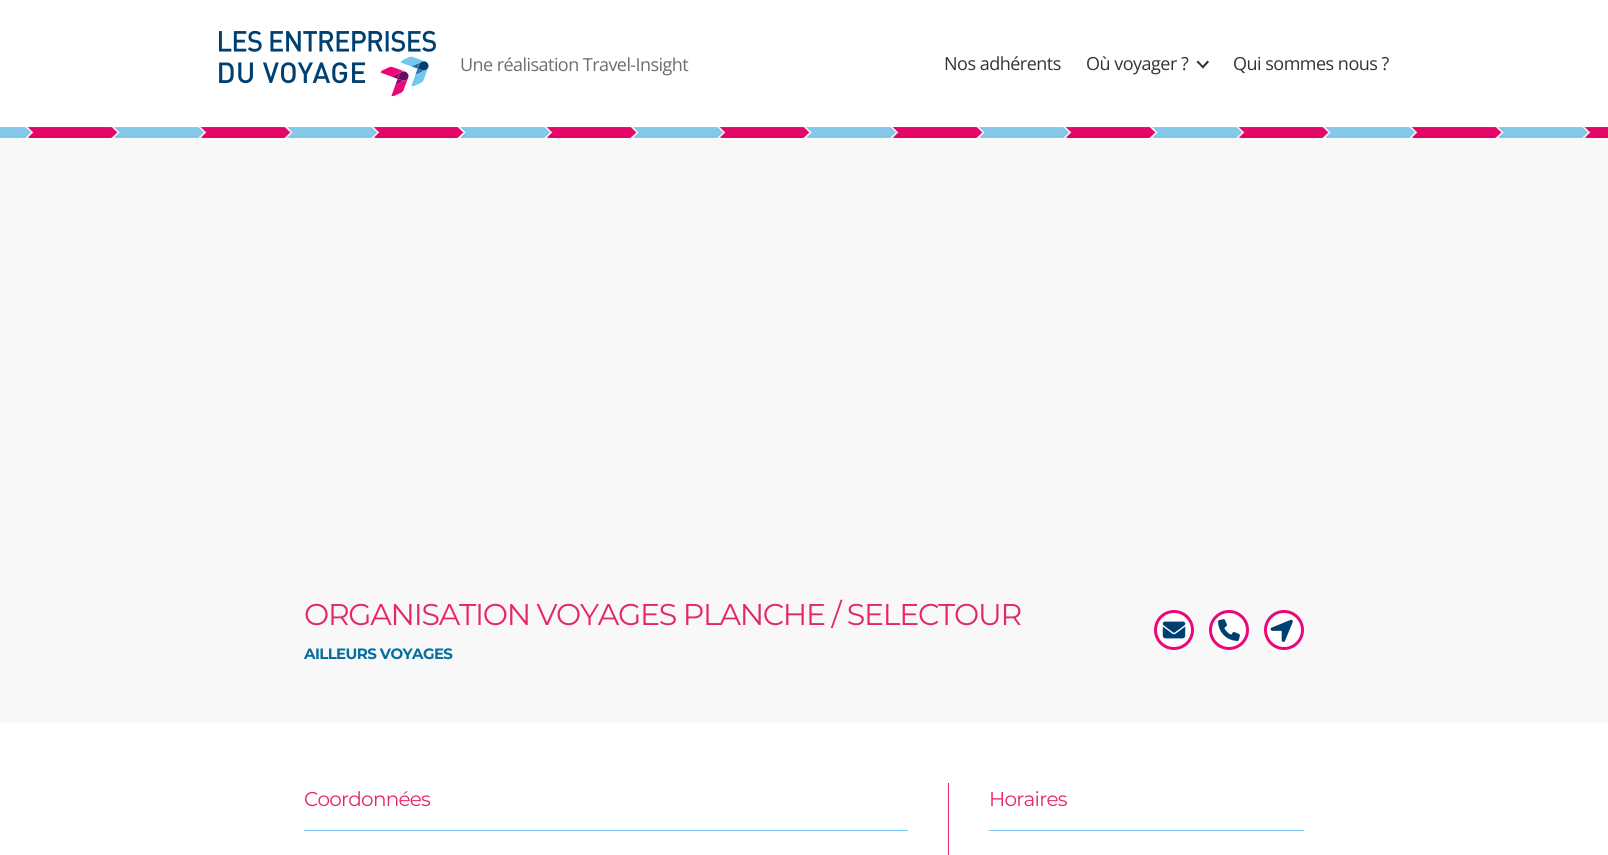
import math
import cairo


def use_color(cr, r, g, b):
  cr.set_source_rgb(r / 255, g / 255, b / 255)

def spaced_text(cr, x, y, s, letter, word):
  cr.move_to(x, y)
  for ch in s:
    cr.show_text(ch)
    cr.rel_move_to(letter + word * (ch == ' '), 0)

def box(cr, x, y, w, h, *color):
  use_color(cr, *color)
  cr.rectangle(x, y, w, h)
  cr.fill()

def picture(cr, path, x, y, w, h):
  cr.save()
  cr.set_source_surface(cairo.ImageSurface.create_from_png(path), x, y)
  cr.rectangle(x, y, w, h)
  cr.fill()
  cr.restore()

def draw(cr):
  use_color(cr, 255, 255, 255)
  cr.paint()
  picture(cr, "img_01.png", 219, 30, 217, 67)
  use_color(cr, 51, 51, 51)
  cr.new_path()
  cr.move_to(1196.5, 62)
  cr.line_to(1198, 60.5)
  cr.line_to(1204, 67)
  cr.line_to(1203, 68.5)
  cr.close_path()
  cr.fill()
  cr.new_path()
  cr.move_to(1201.5, 67)
  cr.line_to(1207.5, 60.5)
  cr.line_to(1209, 62)
  cr.line_to(1203, 68.5)
  cr.close_path()
  cr.fill()
  picture(cr, "img_02.png", 0, 127, 1608, 11)
  box(cr, 0, 138, 1608, 585, 248, 248, 248)
  use_color(cr, 255, 255, 255)
  cr.arc(1174, 630, 18.5, 0, 2 * math.pi)
  cr.fill_preserve()
  use_color(cr, 237, 6, 119)
  cr.set_line_width(3)
  cr.stroke()
  picture(cr, "img_03.png", 1162, 621, 24, 18)
  use_color(cr, 255, 255, 255)
  cr.arc(1229, 630, 18.5, 0, 2 * math.pi)
  cr.fill_preserve()
  use_color(cr, 237, 6, 119)
  cr.stroke()
  picture(cr, "img_04.png", 1218, 619, 22, 22)
  use_color(cr, 255, 255, 255)
  cr.arc(1284, 630, 18.5, 0, 2 * math.pi)
  cr.fill_preserve()
  use_color(cr, 237, 6, 119)
  cr.stroke()
  picture(cr, "img_05.png", 1270, 619, 23, 23)
  box(cr, 304, 830, 604, 1, 114, 198, 239)
  box(cr, 948, 783, 1, 72, 230, 38, 108)
  box(cr, 989, 830, 315, 1, 114, 198, 239)
  cr.select_font_face("Open Sans")
  cr.set_font_size(18)
  use_color(cr, 109, 109, 109)
  spaced_text(cr, 460, 71, "Une réalisation Travel-Insight", -0.55, 0)
  use_color(cr, 51, 51, 51)
  spaced_text(cr, 944, 70, "Nos adhérents", -0.5, 0)
  spaced_text(cr, 1086, 70, "Où voyager ?", -0.5, 0)
  spaced_text(cr, 1233, 70, "Qui sommes nous ?", -0.5, 0)
  cr.select_font_face("Montserrat")
  cr.set_font_size(30)
  use_color(cr, 230, 38, 108)
  spaced_text(cr, 304, 625, "ORGANISATION VOYAGES PLANCHE / SELECTOUR", -1.25, 0)
  cr.select_font_face("Montserrat", cairo.FONT_SLANT_NORMAL, cairo.FONT_WEIGHT_BOLD)
  cr.set_font_size(15)
  use_color(cr, 4, 111, 158)
  spaced_text(cr, 304, 659, "AILLEURS VOYAGES", -0.6, 0)
  cr.select_font_face("Montserrat")
  cr.set_font_size(20)
  use_color(cr, 230, 38, 108)
  spaced_text(cr, 304, 806, "Coordonnées", -0.75, 0)
  spaced_text(cr, 989, 806, "Horaires", -0.75, 0)


surface = cairo.ImageSurface(cairo.FORMAT_RGB24, 1608, 855)
cr = cairo.Context(surface)
options = cairo.FontOptions()
options.set_hint_metrics(cairo.HINT_METRICS_OFF)
options.set_hint_style(cairo.HINT_STYLE_NONE)
cr.set_font_options(options)
cr.set_miter_limit(4)
draw(cr)
surface.write_to_png("out.png")
